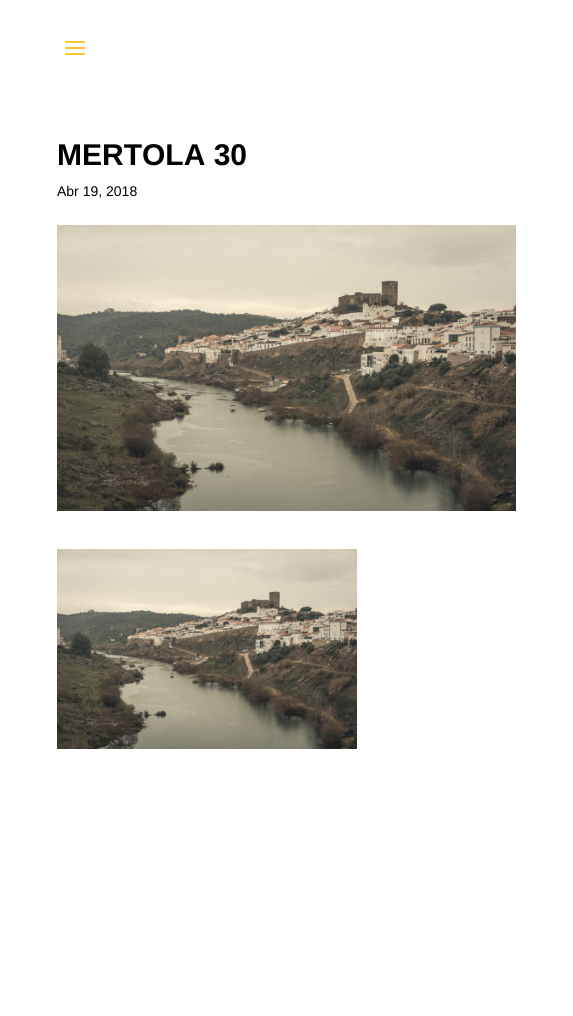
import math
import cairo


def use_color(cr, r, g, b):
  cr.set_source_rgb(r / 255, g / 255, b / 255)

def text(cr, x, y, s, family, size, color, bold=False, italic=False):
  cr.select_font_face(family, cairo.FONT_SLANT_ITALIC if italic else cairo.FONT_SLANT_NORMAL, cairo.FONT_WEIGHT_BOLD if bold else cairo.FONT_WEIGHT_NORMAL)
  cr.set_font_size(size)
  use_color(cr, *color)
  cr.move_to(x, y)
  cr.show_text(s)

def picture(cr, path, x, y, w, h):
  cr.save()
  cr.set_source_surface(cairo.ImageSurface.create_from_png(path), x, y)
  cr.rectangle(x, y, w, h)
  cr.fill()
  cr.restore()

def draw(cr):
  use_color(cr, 255, 255, 255)
  cr.paint()
  picture(cr, "img_01.png", 65, 41, 20, 14)
  picture(cr, "img_02.png", 57, 225, 459, 286)
  picture(cr, "img_03.png", 57, 549, 300, 200)
  text(cr, 57, 165, "MERTOLA 30", "Liberation Sans", 30, (0, 0, 0), bold=True)
  text(cr, 57, 196, "Abr 19, 2018", "Liberation Sans", 14, (0, 0, 0))


surface = cairo.ImageSurface(cairo.FORMAT_RGB24, 573, 1016)
cr = cairo.Context(surface)
options = cairo.FontOptions()
options.set_hint_metrics(cairo.HINT_METRICS_OFF)
options.set_hint_style(cairo.HINT_STYLE_NONE)
cr.set_font_options(options)
cr.set_miter_limit(4)
draw(cr)
surface.write_to_png("out.png")
